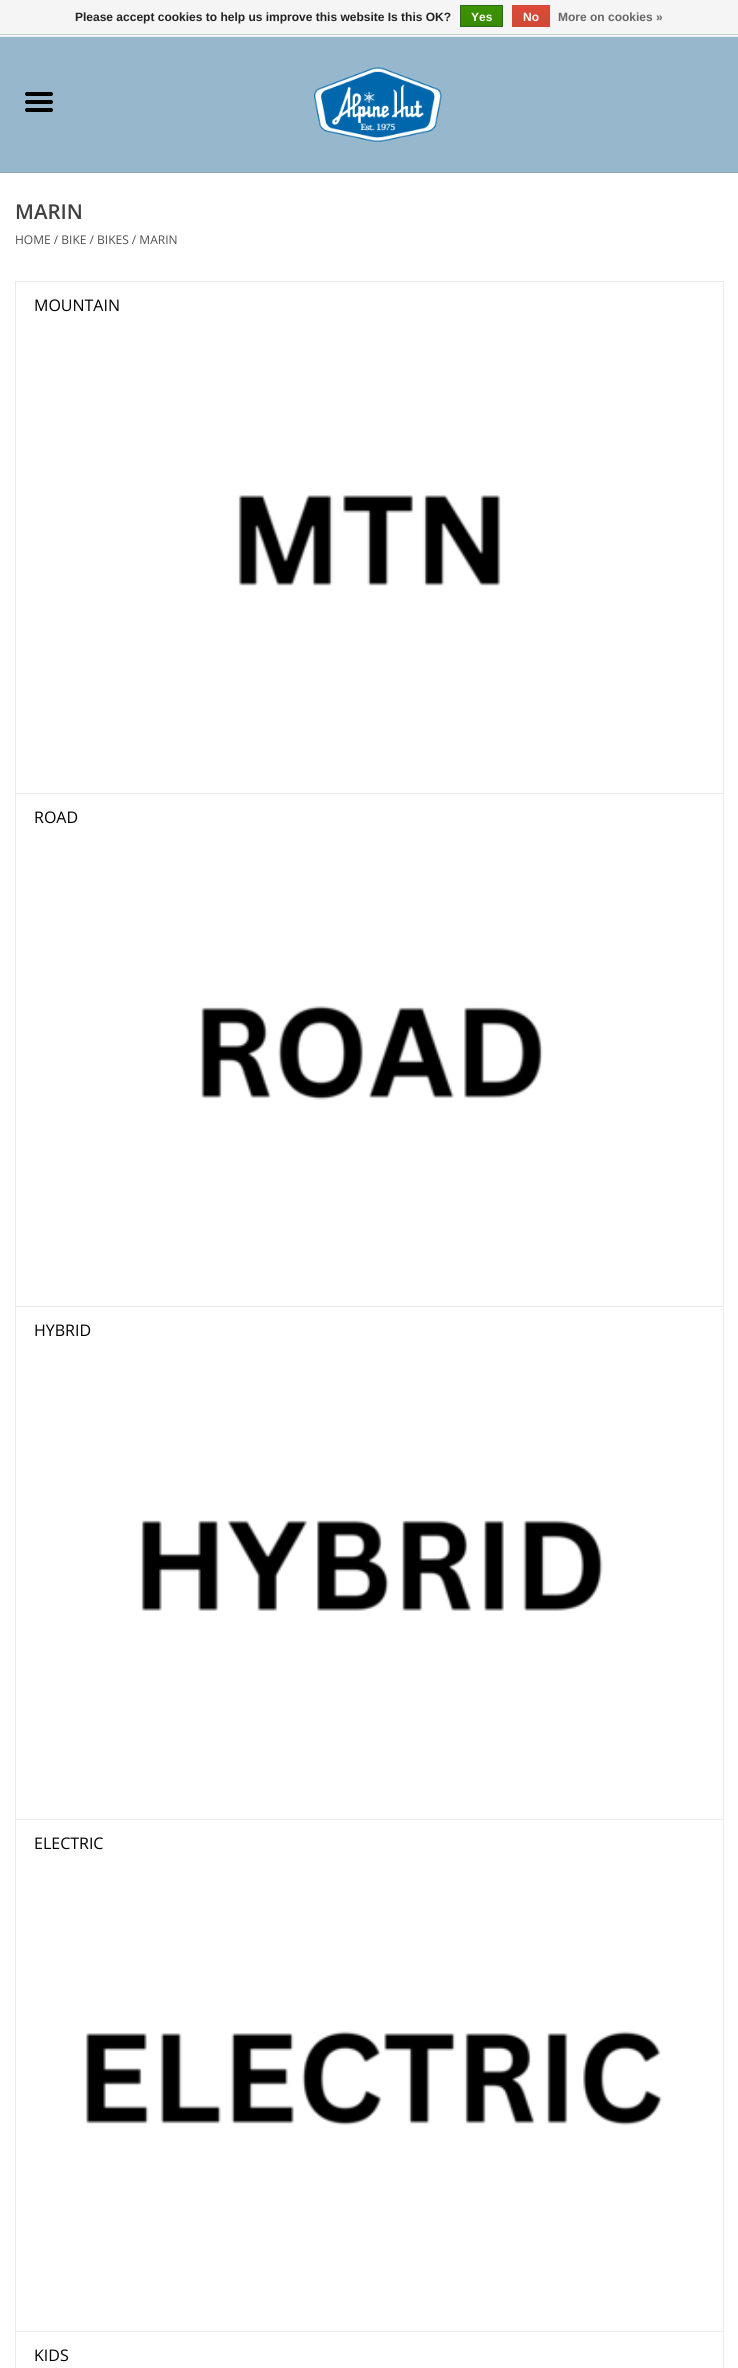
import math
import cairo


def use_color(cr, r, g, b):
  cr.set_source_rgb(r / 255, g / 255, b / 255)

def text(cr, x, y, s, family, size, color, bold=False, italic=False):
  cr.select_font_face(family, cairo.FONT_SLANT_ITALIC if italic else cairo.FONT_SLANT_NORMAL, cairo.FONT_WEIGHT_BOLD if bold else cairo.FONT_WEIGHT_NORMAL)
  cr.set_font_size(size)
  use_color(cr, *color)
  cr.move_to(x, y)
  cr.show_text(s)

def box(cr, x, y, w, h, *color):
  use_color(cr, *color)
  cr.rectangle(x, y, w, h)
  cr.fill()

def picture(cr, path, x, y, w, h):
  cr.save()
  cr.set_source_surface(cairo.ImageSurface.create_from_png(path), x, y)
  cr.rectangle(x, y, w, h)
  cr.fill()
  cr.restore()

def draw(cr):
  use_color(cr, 151, 184, 204)
  cr.paint()
  box(cr, 0, 0, 738, 34, 245, 245, 245)
  box(cr, 0, 34, 738, 1, 204, 204, 204)
  gradient = cairo.LinearGradient(482, 6, 482, 26)
  gradient.add_color_stop_rgba(0, 0.235, 0.576, 0, 1)
  gradient.add_color_stop_rgba(1, 0.224, 0.541, 0, 1)
  cr.set_source(gradient)
  cr.rectangle(461, 6, 41, 20)
  cr.fill()
  cr.rectangle(460.5, 5.5, 42, 21)
  use_color(cr, 41, 105, 29)
  cr.set_line_width(1)
  cr.stroke()
  gradient = cairo.LinearGradient(531, 6, 531, 26)
  gradient.add_color_stop_rgba(0, 0.863, 0.29, 0.22, 1)
  gradient.add_color_stop_rgba(1, 0.82, 0.282, 0.212, 1)
  cr.set_source(gradient)
  cr.rectangle(513, 6, 36, 20)
  cr.fill()
  cr.rectangle(512.5, 5.5, 37, 21)
  use_color(cr, 209, 72, 54)
  cr.stroke()
  box(cr, 0, 35, 738, 1, 255, 255, 255)
  box(cr, 0, 36, 738, 1, 237, 237, 237)
  box(cr, 0, 172, 738, 1, 138, 169, 187)
  picture(cr, "img_01.png", 314, 67, 128, 75)
  picture(cr, "img_02.png", 25, 92, 28, 20)
  box(cr, 0, 173, 738, 2195, 255, 255, 255)
  cr.rectangle(15.5, 281.5, 708, 512)
  use_color(cr, 234, 234, 234)
  cr.stroke()
  picture(cr, "img_03.png", 16, 282, 707, 511)
  cr.rectangle(15.5, 793.5, 708, 513)
  cr.stroke()
  picture(cr, "img_04.png", 16, 794, 707, 512)
  cr.rectangle(15.5, 1306.5, 708, 513)
  cr.stroke()
  picture(cr, "img_05.png", 16, 1307, 707, 512)
  cr.rectangle(15.5, 1819.5, 708, 512)
  cr.stroke()
  picture(cr, "img_06.png", 16, 1820, 707, 511)
  cr.rectangle(15.5, 2331.5, 708, 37)
  cr.stroke()
  text(cr, 75, 21, "Please accept cookies to help us improve this website Is this OK?", "Liberation Sans", 12, (34, 34, 34), bold=True)
  text(cr, 471, 21, "Yes", "Liberation Sans", 12, (255, 255, 255), bold=True)
  text(cr, 523, 21, "No", "Liberation Sans", 12, (255, 255, 255), bold=True)
  text(cr, 558, 21, "More on cookies »", "Liberation Sans", 12, (102, 102, 102), bold=True)
  text(cr, 15, 219, "MARIN", "Open Sans SemiBold", 20.5, (65, 65, 65))
  text(cr, 15, 244, "HOME / BIKE / BIKES / MARIN", "Open Sans", 12, (80, 80, 80))
  text(cr, 34, 311, "MOUNTAIN", "Open Sans", 16, (0, 0, 0))
  text(cr, 34, 823, "ROAD", "Open Sans", 16, (0, 0, 0))
  text(cr, 34, 1336, "HYBRID", "Open Sans", 16, (0, 0, 0))
  text(cr, 34, 1849, "ELECTRIC", "Open Sans", 16, (0, 0, 0))
  text(cr, 34, 2361, "KIDS", "Open Sans", 16, (0, 0, 0))


surface = cairo.ImageSurface(cairo.FORMAT_RGB24, 738, 2368)
cr = cairo.Context(surface)
options = cairo.FontOptions()
options.set_hint_metrics(cairo.HINT_METRICS_OFF)
options.set_hint_style(cairo.HINT_STYLE_NONE)
cr.set_font_options(options)
cr.set_miter_limit(4)
draw(cr)
surface.write_to_png("out.png")
